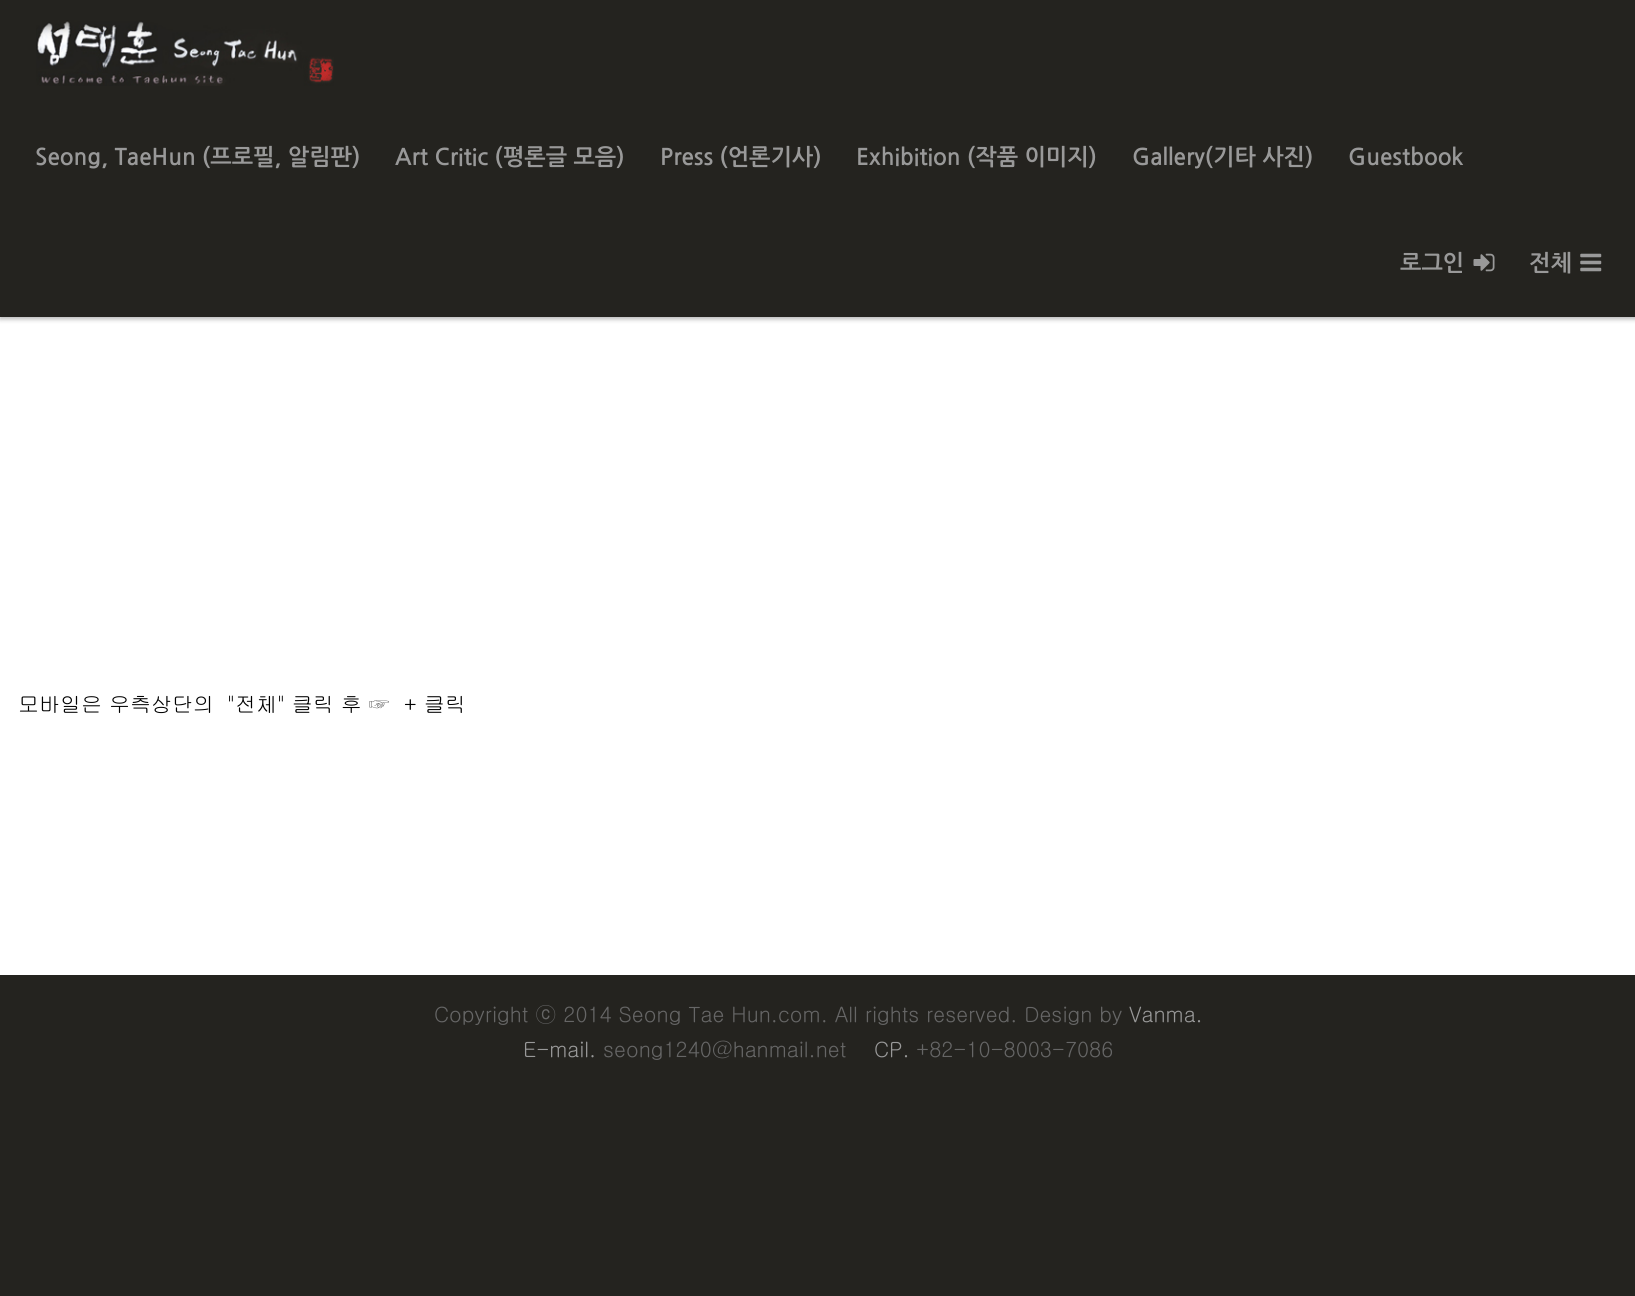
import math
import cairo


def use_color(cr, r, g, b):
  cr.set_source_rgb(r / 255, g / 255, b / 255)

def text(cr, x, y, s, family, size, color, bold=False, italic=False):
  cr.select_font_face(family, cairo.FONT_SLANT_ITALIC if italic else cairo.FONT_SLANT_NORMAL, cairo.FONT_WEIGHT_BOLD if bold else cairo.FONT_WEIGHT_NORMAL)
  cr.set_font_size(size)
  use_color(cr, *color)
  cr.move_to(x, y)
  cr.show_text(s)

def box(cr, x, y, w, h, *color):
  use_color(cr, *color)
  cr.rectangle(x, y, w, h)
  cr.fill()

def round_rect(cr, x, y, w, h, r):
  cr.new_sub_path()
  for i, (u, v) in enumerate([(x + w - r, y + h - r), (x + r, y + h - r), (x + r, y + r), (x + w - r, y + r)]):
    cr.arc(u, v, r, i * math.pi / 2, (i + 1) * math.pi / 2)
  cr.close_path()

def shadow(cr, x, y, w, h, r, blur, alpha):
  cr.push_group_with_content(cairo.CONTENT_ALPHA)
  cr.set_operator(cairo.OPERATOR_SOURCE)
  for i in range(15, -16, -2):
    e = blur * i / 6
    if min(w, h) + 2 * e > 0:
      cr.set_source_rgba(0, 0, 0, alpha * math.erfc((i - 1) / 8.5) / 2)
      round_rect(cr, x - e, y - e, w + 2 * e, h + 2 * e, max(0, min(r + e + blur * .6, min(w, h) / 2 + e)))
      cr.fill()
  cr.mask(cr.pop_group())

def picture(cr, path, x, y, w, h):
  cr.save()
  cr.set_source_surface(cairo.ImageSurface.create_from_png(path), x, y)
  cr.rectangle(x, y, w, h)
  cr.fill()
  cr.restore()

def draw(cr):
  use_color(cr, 36, 35, 31)
  cr.paint()
  box(cr, 0, 317, 1635, 658, 255, 255, 255)
  use_color(cr, 0, 0, 0)
  shadow(cr, 0, 2, 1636, 317, 0, 2.5, 0.3)
  box(cr, 0, 0, 1635, 317, 36, 35, 31)
  picture(cr, "img_01.png", 36, 20, 298, 66)
  picture(cr, "img_02.png", 1473, 253, 22, 19)
  picture(cr, "img_03.png", 1580, 253, 22, 19)
  text(cr, 35, 165, "Seong, TaeHun (프로필, 알림판)", "NanumGothic", 22.75, (153, 153, 153), bold=True)
  text(cr, 395, 165, "Art Critic (평론글 모음)", "NanumGothic", 22.75, (153, 153, 153), bold=True)
  text(cr, 660, 165, "Press (언론기사)", "NanumGothic", 22.75, (153, 153, 153), bold=True)
  text(cr, 856, 165, "Exhibition (작품 이미지)", "NanumGothic", 22.75, (153, 153, 153), bold=True)
  text(cr, 1132, 165, "Gallery(기타 사진)", "NanumGothic", 22.75, (153, 153, 153), bold=True)
  text(cr, 1348, 165, "Guestbook", "NanumGothic", 22.75, (153, 153, 153), bold=True)
  text(cr, 1400, 271, "로그인", "NanumGothic", 22.75, (153, 153, 153), bold=True)
  text(cr, 1529, 271, "전체", "NanumGothic", 22.75, (153, 153, 153), bold=True)
  text(cr, 18, 712, "모바일은 우측상단의", "Gulim", 21, (0, 0, 0))
  text(cr, 227, 712, "\"전체\" 클릭 후 ☞  + 클릭", "Gulim", 21, (0, 0, 0))
  text(cr, 434, 1022, "Copyright ⓒ 2014 Seong Tae Hun.com. All rights reserved. Design by", "Gulim", 21, (102, 102, 102))
  text(cr, 1129, 1022, "Vanma.", "Gulim", 21, (153, 153, 153))
  text(cr, 523, 1057, "E-mail.", "Gulim", 21, (153, 153, 153))
  text(cr, 603, 1057, "seong1240@hanmail.net", "Gulim", 21, (102, 102, 102))
  text(cr, 874, 1057, "CP.", "Gulim", 21, (153, 153, 153))
  text(cr, 916, 1057, "+82-10-8003-7086", "Gulim", 21, (102, 102, 102))


surface = cairo.ImageSurface(cairo.FORMAT_RGB24, 1635, 1296)
cr = cairo.Context(surface)
options = cairo.FontOptions()
options.set_hint_metrics(cairo.HINT_METRICS_OFF)
options.set_hint_style(cairo.HINT_STYLE_NONE)
cr.set_font_options(options)
cr.set_miter_limit(4)
draw(cr)
surface.write_to_png("out.png")
